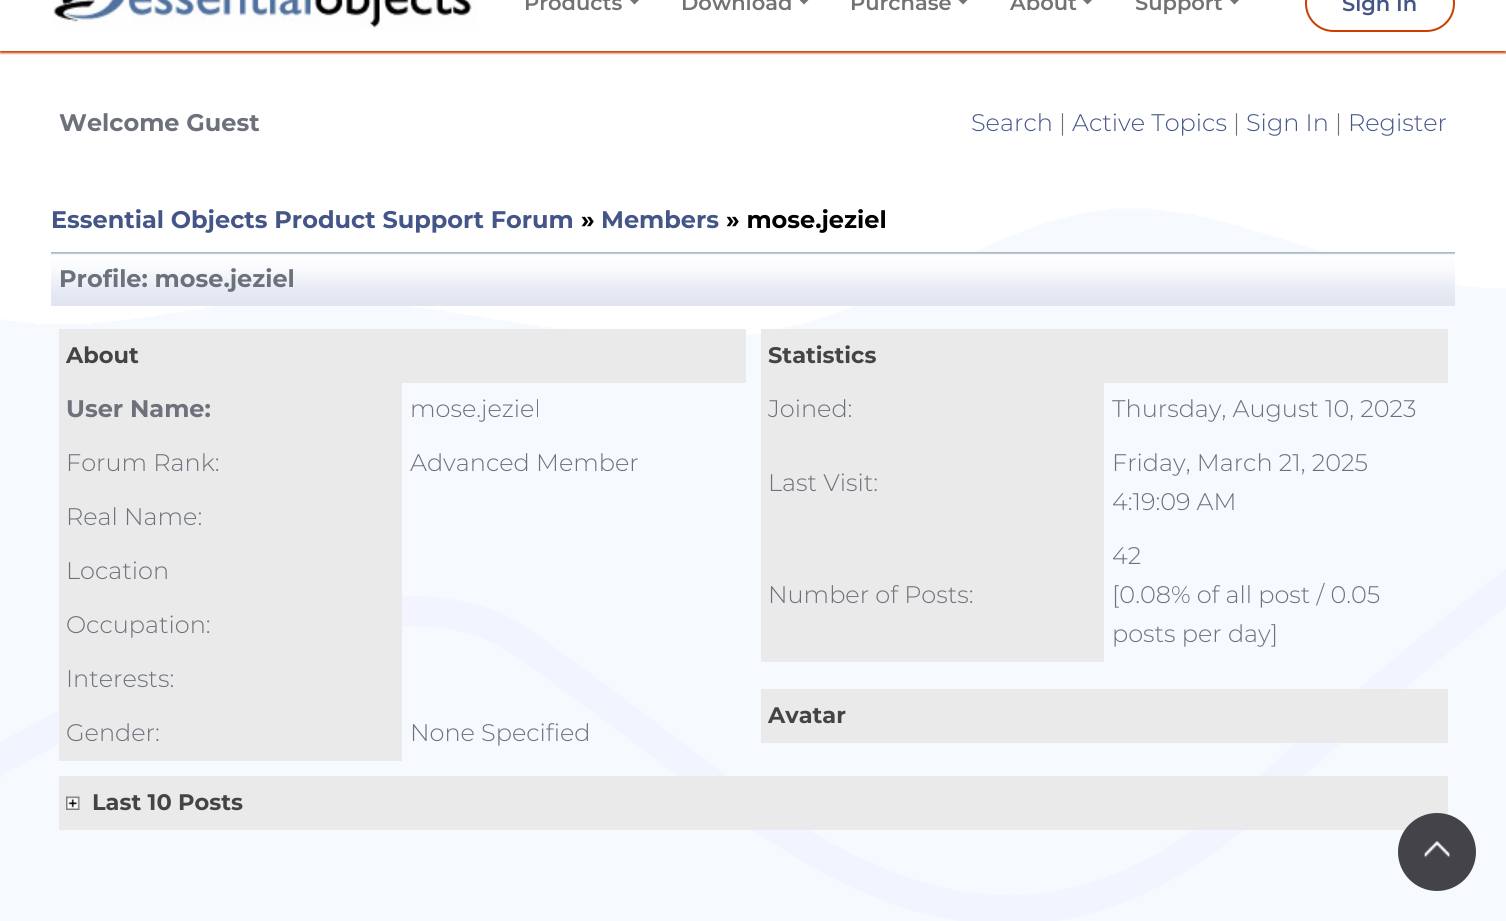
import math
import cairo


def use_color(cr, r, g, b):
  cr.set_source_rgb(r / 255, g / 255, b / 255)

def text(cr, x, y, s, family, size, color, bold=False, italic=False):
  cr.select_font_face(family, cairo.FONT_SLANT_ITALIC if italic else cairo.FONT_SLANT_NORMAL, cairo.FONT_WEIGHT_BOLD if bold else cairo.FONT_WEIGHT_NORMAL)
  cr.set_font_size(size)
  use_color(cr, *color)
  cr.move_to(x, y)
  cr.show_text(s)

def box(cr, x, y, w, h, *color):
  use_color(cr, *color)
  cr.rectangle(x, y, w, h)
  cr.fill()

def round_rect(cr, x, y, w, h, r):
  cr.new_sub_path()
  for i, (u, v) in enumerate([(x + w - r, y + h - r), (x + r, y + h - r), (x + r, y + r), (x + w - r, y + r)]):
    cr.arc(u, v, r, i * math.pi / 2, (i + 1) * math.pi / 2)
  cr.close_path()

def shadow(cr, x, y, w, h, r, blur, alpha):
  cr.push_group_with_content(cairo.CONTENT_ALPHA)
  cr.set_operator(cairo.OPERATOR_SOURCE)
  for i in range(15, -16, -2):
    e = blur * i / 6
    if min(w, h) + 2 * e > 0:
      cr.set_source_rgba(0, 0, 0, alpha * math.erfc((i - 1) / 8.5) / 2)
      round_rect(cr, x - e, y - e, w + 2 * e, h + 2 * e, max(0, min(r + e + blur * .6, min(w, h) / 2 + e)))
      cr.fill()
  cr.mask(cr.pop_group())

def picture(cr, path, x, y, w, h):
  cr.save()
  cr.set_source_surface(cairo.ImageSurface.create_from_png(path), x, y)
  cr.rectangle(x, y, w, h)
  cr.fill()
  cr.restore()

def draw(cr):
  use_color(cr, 255, 255, 255)
  cr.paint()
  cr.save()
  cr.rectangle(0, 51, 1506, 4)
  cr.clip()
  use_color(cr, 203, 62, 0)
  shadow(cr, 0, -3, 1506, 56, 0, 1, 1)
  cr.restore()
  picture(cr, "img_01.png", 53, 0, 425, 30)
  use_color(cr, 115, 115, 115)
  cr.new_path()
  cr.move_to(628.5, -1.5)
  cr.line_to(640.5, -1.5)
  cr.line_to(634.5, 4.5)
  cr.close_path()
  cr.fill()
  cr.new_path()
  cr.move_to(798, -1.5)
  cr.line_to(810, -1.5)
  cr.line_to(804, 4.5)
  cr.close_path()
  cr.fill()
  cr.new_path()
  cr.move_to(957, -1.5)
  cr.line_to(969, -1.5)
  cr.line_to(963, 4.5)
  cr.close_path()
  cr.fill()
  cr.new_path()
  cr.move_to(1081.5, -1.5)
  cr.line_to(1093.5, -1.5)
  cr.line_to(1087.5, 4.5)
  cr.close_path()
  cr.fill()
  cr.new_path()
  cr.move_to(1228.5, -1.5)
  cr.line_to(1240.5, -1.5)
  cr.line_to(1234.5, 4.5)
  cr.close_path()
  cr.fill()
  round_rect(cr, 1306, -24, 148, 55, 27.5)
  use_color(cr, 203, 62, 0)
  cr.stroke()
  picture(cr, "img_02.png", 0, 208, 1506, 713)
  picture(cr, "img_03.png", 51, 252, 1404, 54)
  box(cr, 59, 329, 687, 54, 234, 234, 234)
  box(cr, 59, 383, 343, 378, 234, 234, 234)
  box(cr, 761, 329, 687, 54, 234, 234, 234)
  box(cr, 761, 383, 343, 279, 234, 234, 234)
  box(cr, 761, 689, 687, 54, 234, 234, 234)
  box(cr, 59, 776, 1389, 54, 234, 234, 234)
  picture(cr, "img_04.png", 66, 796, 14, 14)
  use_color(cr, 68, 67, 74)
  cr.arc(1437, 852, 39, 0, 2 * math.pi)
  cr.fill()
  picture(cr, "img_05.png", 1424, 841, 26, 17)
  text(cr, 524, 10, "Products", "Montserrat SemiBold", 21, (115, 115, 115))
  text(cr, 681, 10, "Download", "Montserrat SemiBold", 21, (115, 115, 115))
  text(cr, 850, 10, "Purchase", "Montserrat SemiBold", 21, (115, 115, 115))
  text(cr, 1010, 10, "About", "Montserrat SemiBold", 21, (115, 115, 115))
  text(cr, 1135, 10, "Support", "Montserrat SemiBold", 21, (115, 115, 115))
  text(cr, 1342, 11, "Sign In", "Montserrat SemiBold", 21, (68, 85, 136))
  text(cr, 59, 131, "Welcome Guest", "Montserrat", 24, (108, 113, 123), bold=True)
  text(cr, 971, 131, "Search", "Montserrat Light", 24, (68, 85, 136))
  text(cr, 1059, 131, "|", "Montserrat Light", 24, (108, 113, 123))
  text(cr, 1072, 131, "Active Topics", "Montserrat Light", 24, (68, 85, 136))
  text(cr, 1233, 131, "|", "Montserrat Light", 24, (108, 113, 123))
  text(cr, 1246, 131, "Sign In", "Montserrat Light", 24, (68, 85, 136))
  text(cr, 1335, 131, "|", "Montserrat Light", 24, (108, 113, 123))
  text(cr, 1348, 131, "Register", "Montserrat Light", 24, (68, 85, 136))
  text(cr, 51, 228, "Essential Objects Product Support Forum", "Montserrat", 24, (68, 85, 136), bold=True)
  text(cr, 581, 228, "»", "Montserrat", 24, (0, 0, 0), bold=True)
  text(cr, 601, 228, "Members", "Montserrat", 24, (68, 85, 136), bold=True)
  text(cr, 726, 228, "» mose.jeziel", "Montserrat", 24, (0, 0, 0), bold=True)
  text(cr, 59, 287, "Profile: mose.jeziel", "Montserrat", 24, (108, 113, 123), bold=True)
  text(cr, 66, 363, "About", "Montserrat", 22.5, (68, 68, 68), bold=True)
  text(cr, 66, 417, "User Name:", "Montserrat", 24, (108, 113, 123), bold=True)
  text(cr, 410, 417, "mose.jeziel", "Montserrat Light", 24, (108, 113, 123))
  text(cr, 66, 471, "Forum Rank:", "Montserrat Light", 24, (108, 113, 123))
  text(cr, 410, 471, "Advanced Member", "Montserrat Light", 24, (108, 113, 123))
  text(cr, 66, 525, "Real Name:", "Montserrat Light", 24, (108, 113, 123))
  text(cr, 66, 579, "Location", "Montserrat Light", 24, (108, 113, 123))
  text(cr, 66, 633, "Occupation:", "Montserrat Light", 24, (108, 113, 123))
  text(cr, 66, 687, "Interests:", "Montserrat Light", 24, (108, 113, 123))
  text(cr, 66, 741, "Gender:", "Montserrat Light", 24, (108, 113, 123))
  text(cr, 410, 741, "None Specified", "Montserrat Light", 24, (108, 113, 123))
  text(cr, 768, 363, "Statistics", "Montserrat", 22.5, (68, 68, 68), bold=True)
  text(cr, 768, 417, "Joined:", "Montserrat Light", 24, (108, 113, 123))
  text(cr, 1112, 417, "Thursday, August 10, 2023", "Montserrat Light", 24, (108, 113, 123))
  text(cr, 768, 491, "Last Visit:", "Montserrat Light", 24, (108, 113, 123))
  text(cr, 1112, 471, "Friday, March 21, 2025", "Montserrat Light", 24, (108, 113, 123))
  text(cr, 1112, 510, "4:19:09 AM", "Montserrat Light", 24, (108, 113, 123))
  text(cr, 768, 603, "Number of Posts:", "Montserrat Light", 24, (108, 113, 123))
  text(cr, 1112, 564, "42", "Montserrat Light", 24, (108, 113, 123))
  text(cr, 1112, 603, "[0.08% of all post / 0.05", "Montserrat Light", 24, (108, 113, 123))
  text(cr, 1112, 642, "posts per day]", "Montserrat Light", 24, (108, 113, 123))
  text(cr, 768, 723, "Avatar", "Montserrat", 22.5, (68, 68, 68), bold=True)
  text(cr, 92, 810, "Last 10 Posts", "Montserrat", 22.5, (68, 68, 68), bold=True)


surface = cairo.ImageSurface(cairo.FORMAT_RGB24, 1506, 921)
cr = cairo.Context(surface)
options = cairo.FontOptions()
options.set_hint_metrics(cairo.HINT_METRICS_OFF)
options.set_hint_style(cairo.HINT_STYLE_NONE)
cr.set_font_options(options)
cr.set_miter_limit(4)
draw(cr)
surface.write_to_png("out.png")
